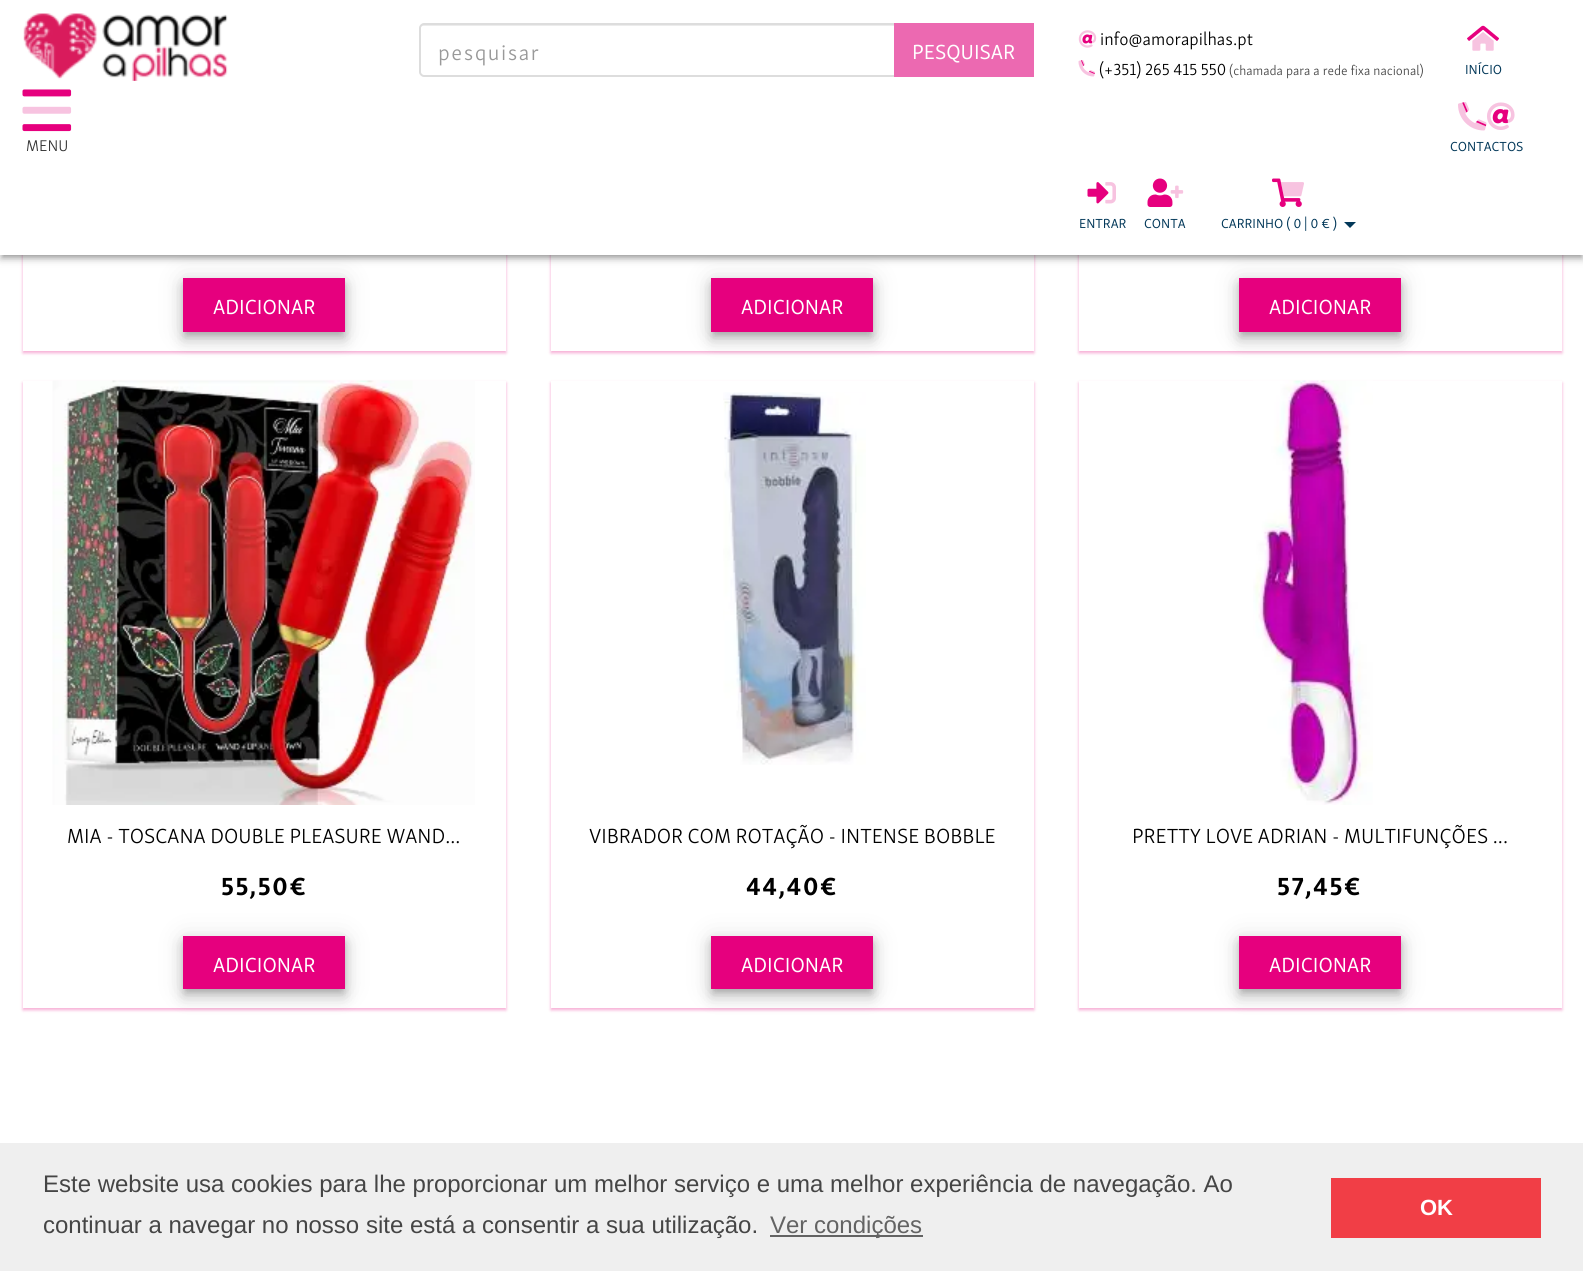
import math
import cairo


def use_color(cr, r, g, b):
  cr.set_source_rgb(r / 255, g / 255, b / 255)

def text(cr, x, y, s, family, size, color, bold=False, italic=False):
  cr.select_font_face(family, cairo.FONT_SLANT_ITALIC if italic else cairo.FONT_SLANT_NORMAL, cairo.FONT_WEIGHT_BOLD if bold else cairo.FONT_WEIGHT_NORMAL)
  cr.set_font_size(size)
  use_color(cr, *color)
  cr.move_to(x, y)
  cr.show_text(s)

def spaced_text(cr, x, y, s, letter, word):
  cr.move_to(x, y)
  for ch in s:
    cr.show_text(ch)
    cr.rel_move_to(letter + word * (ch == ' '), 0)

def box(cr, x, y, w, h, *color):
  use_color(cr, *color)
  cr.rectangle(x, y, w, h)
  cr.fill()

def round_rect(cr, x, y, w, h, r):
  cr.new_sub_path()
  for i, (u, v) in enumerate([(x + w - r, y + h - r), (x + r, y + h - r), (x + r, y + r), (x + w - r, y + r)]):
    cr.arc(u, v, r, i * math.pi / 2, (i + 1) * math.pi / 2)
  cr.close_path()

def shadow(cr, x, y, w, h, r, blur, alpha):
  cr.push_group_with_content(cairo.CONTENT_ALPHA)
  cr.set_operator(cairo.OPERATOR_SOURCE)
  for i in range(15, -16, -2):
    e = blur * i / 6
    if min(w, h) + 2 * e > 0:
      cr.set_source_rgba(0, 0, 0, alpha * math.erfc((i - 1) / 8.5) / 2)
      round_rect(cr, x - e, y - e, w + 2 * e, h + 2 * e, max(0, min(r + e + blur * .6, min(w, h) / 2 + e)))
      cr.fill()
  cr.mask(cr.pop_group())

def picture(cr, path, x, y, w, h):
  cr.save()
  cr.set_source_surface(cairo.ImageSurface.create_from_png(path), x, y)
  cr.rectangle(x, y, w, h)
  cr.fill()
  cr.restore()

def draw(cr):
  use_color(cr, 255, 255, 255)
  cr.paint()
  use_color(cr, 230, 0, 126)
  shadow(cr, 23, -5, 483, 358, 0, 1.5, 0.24)
  shadow(cr, 23, -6, 483, 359, 0, 2, 0.12)
  box(cr, 23, 255, 483, 96, 255, 255, 255)
  use_color(cr, 230, 0, 126)
  shadow(cr, 551, -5, 483, 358, 0, 1.5, 0.24)
  shadow(cr, 551, -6, 483, 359, 0, 2, 0.12)
  box(cr, 551, 255, 483, 96, 255, 255, 255)
  use_color(cr, 230, 0, 126)
  shadow(cr, 1079, -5, 483, 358, 0, 1.5, 0.24)
  shadow(cr, 1079, -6, 483, 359, 0, 2, 0.12)
  box(cr, 1079, 255, 483, 96, 255, 255, 255)
  use_color(cr, 0, 0, 0)
  shadow(cr, 0, 2, 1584, 255, 0, 6, 0.12)
  shadow(cr, 3, 8, 1578, 249, 0, 2, 0.2)
  shadow(cr, 0, 5, 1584, 255, 0, 3, 0.14)
  shadow(cr, 183, 279, 162, 54, 0, 13.5, 0.12)
  shadow(cr, 711, 279, 162, 54, 0, 13.5, 0.12)
  shadow(cr, 1239, 279, 162, 54, 0, 13.5, 0.12)
  box(cr, 0, 0, 1583, 255, 255, 255, 255)
  use_color(cr, 236, 236, 236)
  cr.new_path()
  cr.move_to(423, 26)
  cr.line_to(894, 26)
  cr.line_to(894, 24)
  cr.line_to(423, 24)
  cr.curve_to(421, 24, 420, 26, 420, 28)
  cr.curve_to(420, 27, 421, 26, 423, 26)
  cr.close_path()
  cr.fill()
  cr.new_path()
  cr.move_to(424, 24)
  cr.line_to(895, 24)
  cr.line_to(895, 76)
  cr.line_to(424, 76)
  cr.curve_to(422, 76, 420, 74, 420, 72)
  cr.line_to(420, 28)
  cr.curve_to(420, 26, 422, 24, 424, 24)
  cr.close_path()
  use_color(cr, 221, 221, 221)
  cr.stroke()
  box(cr, 894, 23, 140, 54, 236, 105, 177)
  picture(cr, "img_01.png", 1078, 30, 19, 18)
  picture(cr, "img_02.png", 1078, 60, 17, 17)
  picture(cr, "img_03.png", 1467, 25, 32, 26)
  picture(cr, "img_04.png", 1458, 102, 29, 29)
  picture(cr, "img_05.png", 1487, 102, 28, 28)
  picture(cr, "img_06.png", 1087, 182, 29, 22)
  picture(cr, "img_07.png", 1147, 178, 37, 29)
  picture(cr, "img_08.png", 1272, 178, 32, 29)
  use_color(cr, 2, 56, 89)
  cr.new_path()
  cr.move_to(1344, 222)
  cr.line_to(1356, 222)
  cr.line_to(1350, 228)
  cr.close_path()
  cr.fill()
  picture(cr, "img_09.png", 23, 13, 205, 68)
  picture(cr, "img_10.png", 22, 89, 50, 43)
  use_color(cr, 0, 0, 0)
  shadow(cr, 185, 284, 159, 51, 0, 4, 0.2)
  shadow(cr, 183, 287, 162, 54, 0, 7.5, 0.14)
  box(cr, 183, 278, 162, 54, 230, 0, 126)
  use_color(cr, 0, 0, 0)
  shadow(cr, 713, 284, 159, 51, 0, 4, 0.2)
  shadow(cr, 711, 287, 162, 54, 0, 7.5, 0.14)
  box(cr, 711, 278, 162, 54, 230, 0, 126)
  use_color(cr, 0, 0, 0)
  shadow(cr, 1241, 284, 159, 51, 0, 4, 0.2)
  shadow(cr, 1239, 287, 162, 54, 0, 7.5, 0.14)
  box(cr, 1239, 278, 162, 54, 230, 0, 126)
  use_color(cr, 230, 0, 126)
  shadow(cr, 23, 383, 483, 627, 0, 1.5, 0.24)
  shadow(cr, 23, 383, 483, 627, 0, 2, 0.12)
  box(cr, 23, 381, 483, 627, 255, 255, 255)
  picture(cr, "img_11.png", 52, 380, 423, 425)
  use_color(cr, 0, 0, 0)
  shadow(cr, 185, 942, 159, 50, 0, 4, 0.2)
  shadow(cr, 183, 938, 162, 52, 0, 13.5, 0.12)
  shadow(cr, 183, 945, 162, 53, 0, 7.5, 0.14)
  box(cr, 183, 936, 162, 53, 230, 0, 126)
  use_color(cr, 230, 0, 126)
  shadow(cr, 551, 383, 483, 627, 0, 1.5, 0.24)
  shadow(cr, 551, 383, 483, 627, 0, 2, 0.12)
  box(cr, 551, 381, 483, 627, 255, 255, 255)
  picture(cr, "img_12.png", 723, 392, 143, 373)
  use_color(cr, 0, 0, 0)
  shadow(cr, 713, 942, 159, 50, 0, 4, 0.2)
  shadow(cr, 711, 938, 162, 52, 0, 13.5, 0.12)
  shadow(cr, 711, 945, 162, 53, 0, 7.5, 0.14)
  box(cr, 711, 936, 162, 53, 230, 0, 126)
  use_color(cr, 230, 0, 126)
  shadow(cr, 1079, 383, 483, 627, 0, 1.5, 0.24)
  shadow(cr, 1079, 383, 483, 627, 0, 2, 0.12)
  box(cr, 1079, 381, 483, 627, 255, 255, 255)
  picture(cr, "img_13.png", 1253, 380, 120, 425)
  use_color(cr, 0, 0, 0)
  shadow(cr, 1241, 942, 159, 50, 0, 4, 0.2)
  shadow(cr, 1239, 938, 162, 52, 0, 13.5, 0.12)
  shadow(cr, 1239, 945, 162, 53, 0, 7.5, 0.14)
  box(cr, 1239, 936, 162, 53, 230, 0, 126)
  box(cr, 0, 1143, 1583, 128, 239, 239, 239)
  box(cr, 770, 1235, 153, 2, 99, 99, 99)
  box(cr, 1331, 1178, 210, 60, 241, 62, 70)
  cr.select_font_face("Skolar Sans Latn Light")
  cr.set_font_size(22.5)
  use_color(cr, 153, 153, 153)
  spaced_text(cr, 438, 60, "pesquisar", 1.5, 0)
  text(cr, 912, 59, "PESQUISAR", "Skolar Sans Latn", 21, (255, 255, 255))
  text(cr, 1100, 45, "info@amorapilhas.pt", "Skolar Sans Latn Light", 18, (0, 0, 0))
  text(cr, 1099, 75, "(+351) 265 415 550", "Skolar Sans Latn Light", 16.5, (0, 0, 0))
  text(cr, 1229, 75, "(chamada para a rede fixa nacional)", "Skolar Sans Latn Light", 13.5, (69, 69, 69))
  text(cr, 1465, 74, "INÍCIO", "Skolar Sans Latn", 13.5, (2, 56, 89))
  text(cr, 1450, 151, "CONTACTOS", "Skolar Sans Latn", 13.5, (2, 56, 89))
  text(cr, 1079, 228, "ENTRAR", "Skolar Sans Latn", 13.5, (2, 56, 89))
  text(cr, 1144, 228, "CONTA", "Skolar Sans Latn", 13.5, (2, 56, 89))
  text(cr, 1221, 228, "CARRINHO ( 0 | 0 € )", "Skolar Sans Latn", 13.5, (2, 56, 89))
  text(cr, 26, 151, "MENU", "Skolar Sans Latn Light", 16, (51, 51, 51))
  text(cr, 213, 314, "ADICIONAR", "Skolar Sans Latn", 21, (255, 255, 255))
  text(cr, 741, 314, "ADICIONAR", "Skolar Sans Latn", 21, (255, 255, 255))
  text(cr, 1269, 314, "ADICIONAR", "Skolar Sans Latn", 21, (255, 255, 255))
  text(cr, 67, 843, "MIA - TOSCANA DOUBLE PLEASURE WAND...", "Skolar Sans Latn Light", 21, (0, 0, 0))
  cr.select_font_face("Skolar Sans Latn", cairo.FONT_SLANT_NORMAL, cairo.FONT_WEIGHT_BOLD)
  cr.set_font_size(25.5)
  spaced_text(cr, 221, 895, "55,50€", 1.5, 0)
  text(cr, 213, 972, "ADICIONAR", "Skolar Sans Latn", 21, (255, 255, 255))
  text(cr, 589, 843, "VIBRADOR COM ROTAÇÃO - INTENSE BOBBLE", "Skolar Sans Latn Light", 21, (0, 0, 0))
  cr.select_font_face("Skolar Sans Latn", cairo.FONT_SLANT_NORMAL, cairo.FONT_WEIGHT_BOLD)
  cr.set_font_size(25.5)
  spaced_text(cr, 746, 895, "44,40€", 1.5, 0)
  text(cr, 741, 972, "ADICIONAR", "Skolar Sans Latn", 21, (255, 255, 255))
  text(cr, 1132, 843, "PRETTY LOVE ADRIAN - MULTIFUNÇÕES ...", "Skolar Sans Latn Light", 21, (0, 0, 0))
  cr.select_font_face("Skolar Sans Latn", cairo.FONT_SLANT_NORMAL, cairo.FONT_WEIGHT_BOLD)
  cr.set_font_size(25.5)
  spaced_text(cr, 1277, 895, "57,45€", 1.5, 0)
  text(cr, 1269, 972, "ADICIONAR", "Skolar Sans Latn", 21, (255, 255, 255))
  text(cr, 43, 1192, "Este website usa cookies para lhe proporcionar um melhor serviço e uma melhor experiência de navegação. Ao", "Liberation Sans", 24, (69, 69, 69))
  text(cr, 43, 1233, "continuar a navegar no nosso site está a consentir a sua utilização.", "Liberation Sans", 24, (69, 69, 69))
  text(cr, 770, 1233, "Ver condições", "Liberation Sans", 24, (99, 99, 99))
  text(cr, 1420, 1215, "OK", "Liberation Sans", 22, (255, 255, 255), bold=True)


surface = cairo.ImageSurface(cairo.FORMAT_RGB24, 1583, 1271)
cr = cairo.Context(surface)
options = cairo.FontOptions()
options.set_hint_metrics(cairo.HINT_METRICS_OFF)
options.set_hint_style(cairo.HINT_STYLE_NONE)
cr.set_font_options(options)
cr.set_miter_limit(4)
draw(cr)
surface.write_to_png("out.png")
